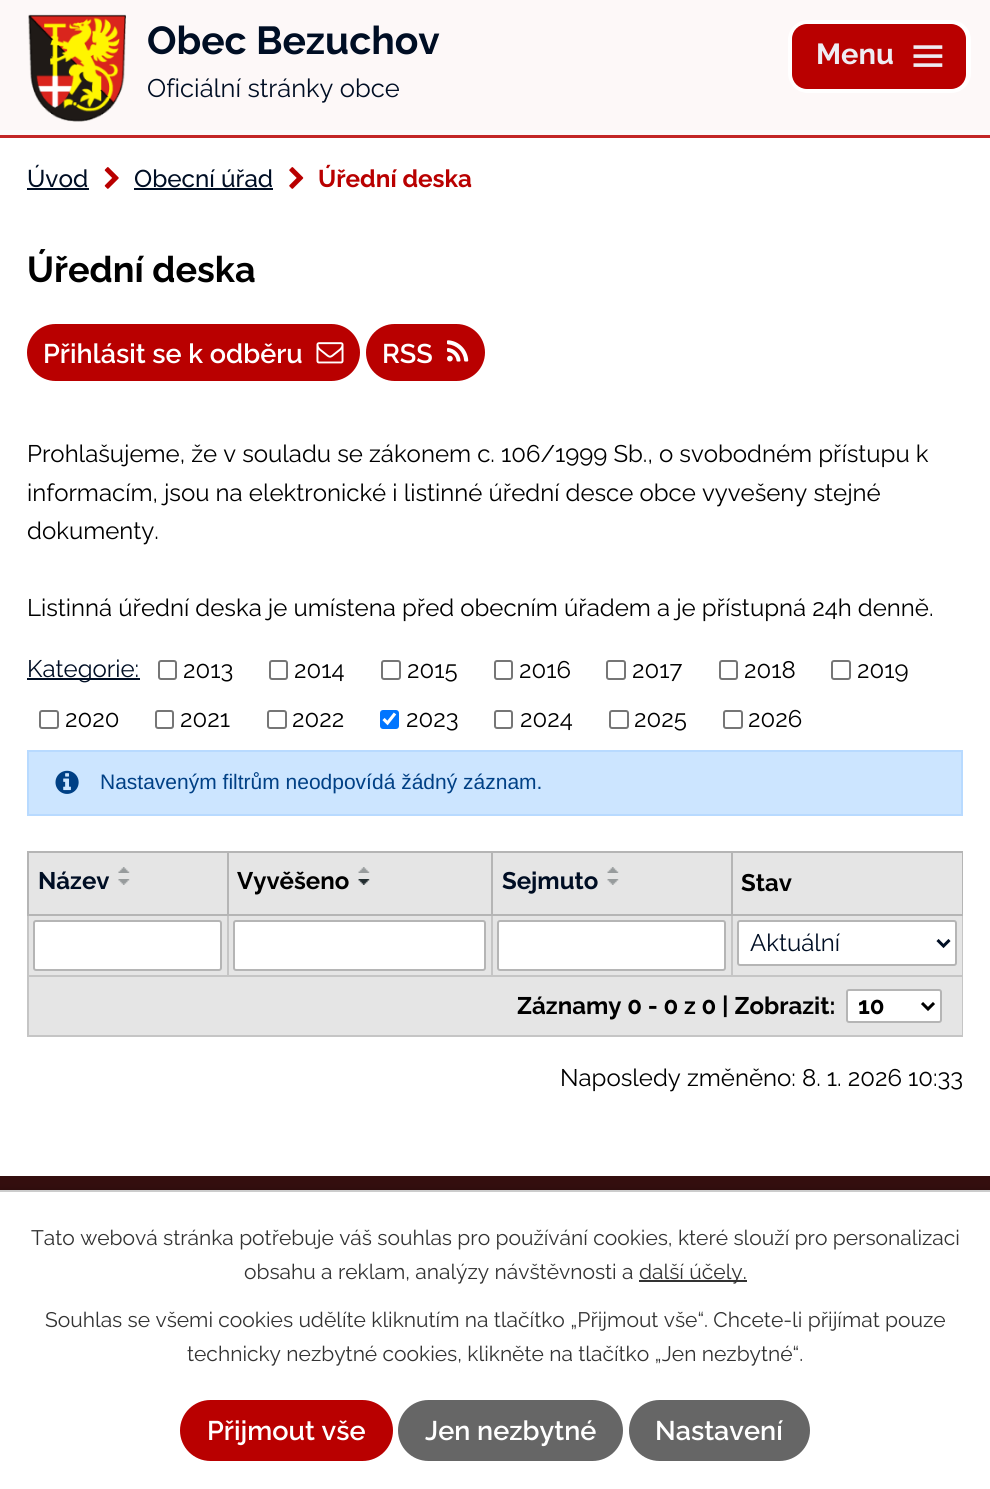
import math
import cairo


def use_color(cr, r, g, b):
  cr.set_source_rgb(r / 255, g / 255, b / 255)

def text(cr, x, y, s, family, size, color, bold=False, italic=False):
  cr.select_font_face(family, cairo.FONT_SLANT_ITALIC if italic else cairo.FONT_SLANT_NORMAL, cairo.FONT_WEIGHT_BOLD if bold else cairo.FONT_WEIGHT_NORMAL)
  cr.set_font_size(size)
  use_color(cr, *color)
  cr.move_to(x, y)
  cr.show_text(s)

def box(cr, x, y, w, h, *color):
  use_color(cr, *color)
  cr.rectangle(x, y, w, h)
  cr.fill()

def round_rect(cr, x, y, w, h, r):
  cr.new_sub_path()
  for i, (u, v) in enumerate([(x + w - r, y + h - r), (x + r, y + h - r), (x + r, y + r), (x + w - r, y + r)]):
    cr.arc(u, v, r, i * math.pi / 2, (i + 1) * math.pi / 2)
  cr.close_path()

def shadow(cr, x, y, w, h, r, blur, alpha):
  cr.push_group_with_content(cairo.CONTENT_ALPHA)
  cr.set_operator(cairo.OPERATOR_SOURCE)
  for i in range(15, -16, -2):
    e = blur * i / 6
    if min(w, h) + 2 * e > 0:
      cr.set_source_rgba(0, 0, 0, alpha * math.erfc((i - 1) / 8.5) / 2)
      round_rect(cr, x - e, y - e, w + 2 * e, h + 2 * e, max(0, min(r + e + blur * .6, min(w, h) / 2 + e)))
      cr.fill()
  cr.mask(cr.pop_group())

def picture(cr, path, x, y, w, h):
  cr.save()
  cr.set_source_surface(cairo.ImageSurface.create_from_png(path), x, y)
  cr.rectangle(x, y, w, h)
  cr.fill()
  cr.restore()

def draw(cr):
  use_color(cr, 255, 255, 255)
  cr.paint()
  box(cr, 0, 0, 990, 135, 253, 248, 248)
  box(cr, 0, 135, 990, 3, 195, 37, 37)
  picture(cr, "img_01.png", 28, 14, 98, 108)
  round_rect(cr, 790.5, 22.5, 178, 68, 17.5)
  use_color(cr, 255, 255, 255)
  cr.set_line_width(5)
  cr.stroke()
  use_color(cr, 185, 0, 0)
  round_rect(cr, 792, 24, 174, 65, 15)
  cr.fill()
  picture(cr, "img_02.png", 913, 45, 30, 22)
  box(cr, 27, 188, 62, 2, 0, 14, 36)
  picture(cr, "img_03.png", 104, 167, 15, 22)
  box(cr, 134, 188, 139, 2, 0, 14, 36)
  picture(cr, "img_04.png", 289, 167, 15, 22)
  use_color(cr, 185, 0, 0)
  round_rect(cr, 27, 324, 333, 57, 28.5)
  cr.fill()
  picture(cr, "img_05.png", 316, 342, 28, 22)
  round_rect(cr, 366, 324, 119, 57, 28.5)
  cr.fill()
  picture(cr, "img_06.png", 447, 340, 22, 22)
  box(cr, 27, 678, 113, 2, 0, 14, 36)
  round_rect(cr, 159, 661, 17, 18, 2)
  use_color(cr, 118, 118, 118)
  cr.set_line_width(2)
  cr.stroke()
  round_rect(cr, 270, 661, 17, 18, 2)
  cr.stroke()
  round_rect(cr, 382, 661, 18, 18, 2)
  cr.stroke()
  round_rect(cr, 495, 661, 17, 18, 2)
  cr.stroke()
  round_rect(cr, 607, 661, 18, 18, 2)
  cr.stroke()
  round_rect(cr, 720, 661, 17, 18, 2)
  cr.stroke()
  round_rect(cr, 832, 661, 18, 18, 2)
  cr.stroke()
  round_rect(cr, 40, 711, 18, 17, 2)
  cr.stroke()
  round_rect(cr, 156, 711, 17, 17, 2)
  cr.stroke()
  round_rect(cr, 268, 711, 18, 17, 2)
  cr.stroke()
  use_color(cr, 0, 117, 255)
  round_rect(cr, 380, 710, 19, 19, 3)
  cr.fill()
  cr.new_path()
  cr.move_to(383.5, 719)
  cr.line_to(387.5, 723)
  cr.line_to(395, 713.5)
  use_color(cr, 255, 255, 255)
  cr.set_line_width(3.1)
  cr.stroke()
  round_rect(cr, 495, 711, 17, 17, 2)
  use_color(cr, 118, 118, 118)
  cr.set_line_width(2)
  cr.stroke()
  round_rect(cr, 610, 711, 18, 17, 2)
  cr.stroke()
  round_rect(cr, 724, 711, 18, 17, 2)
  cr.stroke()
  use_color(cr, 204, 229, 255)
  cr.rectangle(28, 751, 934, 64)
  cr.fill_preserve()
  use_color(cr, 184, 218, 255)
  cr.stroke()
  picture(cr, "img_07.png", 55, 770, 24, 24)
  box(cr, 29, 853, 198, 61, 229, 229, 229)
  box(cr, 731, 851, 232, 2, 181, 181, 181)
  box(cr, 27, 975, 936, 2, 197, 197, 197)
  box(cr, 962, 914, 1, 123, 197, 197, 197)
  box(cr, 962, 851, 1, 64, 181, 181, 181)
  box(cr, 29, 916, 933, 59, 229, 229, 229)
  box(cr, 731, 914, 2, 63, 197, 197, 197)
  box(cr, 731, 914, 232, 2, 181, 181, 181)
  box(cr, 731, 851, 2, 64, 181, 181, 181)
  box(cr, 491, 851, 241, 2, 181, 181, 181)
  box(cr, 491, 914, 2, 63, 197, 197, 197)
  box(cr, 491, 914, 241, 2, 181, 181, 181)
  box(cr, 491, 851, 2, 64, 181, 181, 181)
  box(cr, 227, 851, 265, 2, 181, 181, 181)
  box(cr, 227, 914, 2, 63, 197, 197, 197)
  box(cr, 227, 914, 265, 2, 181, 181, 181)
  box(cr, 227, 851, 2, 64, 181, 181, 181)
  box(cr, 27, 851, 201, 2, 181, 181, 181)
  box(cr, 27, 1035, 936, 2, 197, 197, 197)
  box(cr, 27, 914, 2, 123, 197, 197, 197)
  box(cr, 27, 914, 201, 2, 181, 181, 181)
  box(cr, 27, 851, 2, 64, 181, 181, 181)
  picture(cr, "img_08.png", 118, 867, 12, 6)
  picture(cr, "img_09.png", 118, 879, 12, 6)
  box(cr, 229, 853, 262, 61, 229, 229, 229)
  picture(cr, "img_10.png", 358, 867, 12, 6)
  picture(cr, "img_11.png", 358, 879, 12, 6)
  box(cr, 493, 853, 238, 61, 229, 229, 229)
  picture(cr, "img_10.png", 607, 867, 12, 6)
  picture(cr, "img_12.png", 607, 879, 12, 6)
  box(cr, 733, 853, 229, 61, 229, 229, 229)
  use_color(cr, 255, 255, 255)
  round_rect(cr, 34, 921, 187, 49, 2)
  cr.fill_preserve()
  use_color(cr, 181, 181, 181)
  cr.stroke()
  use_color(cr, 255, 255, 255)
  round_rect(cr, 234, 921, 251, 49, 2)
  cr.fill_preserve()
  use_color(cr, 181, 181, 181)
  cr.stroke()
  use_color(cr, 255, 255, 255)
  round_rect(cr, 498, 921, 227, 49, 2)
  cr.fill_preserve()
  use_color(cr, 181, 181, 181)
  cr.stroke()
  use_color(cr, 255, 255, 255)
  round_rect(cr, 738, 921, 218, 44, 2)
  cr.fill_preserve()
  use_color(cr, 181, 181, 181)
  cr.stroke()
  cr.new_path()
  cr.move_to(937.5, 940)
  cr.line_to(943.5, 946)
  cr.line_to(949.5, 940)
  use_color(cr, 0, 14, 36)
  cr.set_line_width(3)
  cr.stroke()
  box(cr, 29, 977, 933, 58, 229, 229, 229)
  use_color(cr, 255, 255, 255)
  round_rect(cr, 847, 990, 94, 32, 2)
  cr.fill_preserve()
  use_color(cr, 181, 181, 181)
  cr.set_line_width(2)
  cr.stroke()
  cr.new_path()
  cr.move_to(922, 1003)
  cr.line_to(928, 1009)
  cr.line_to(934, 1003)
  use_color(cr, 0, 0, 0)
  cr.set_line_width(3)
  cr.stroke()
  box(cr, 0, 1176, 990, 14, 52, 14, 14)
  use_color(cr, 0, 0, 0)
  shadow(cr, 0, 1190, 990, 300, 0, 4, 0.2)
  box(cr, 0, 1192, 990, 297, 255, 255, 255)
  box(cr, 0, 1190, 990, 2, 204, 204, 204)
  box(cr, 639, 1280, 108, 2, 51, 51, 51)
  use_color(cr, 185, 0, 0)
  round_rect(cr, 180, 1400, 213, 61, 30.5)
  cr.fill()
  use_color(cr, 102, 102, 102)
  round_rect(cr, 398, 1400, 225, 61, 30.5)
  cr.fill()
  round_rect(cr, 629, 1400, 181, 61, 30.5)
  cr.fill()
  text(cr, 147, 54, "Obec Bezuchov", "Raleway", 39, (0, 14, 36), bold=True)
  text(cr, 147, 97, "Oficiální stránky obce", "Raleway", 25.5, (0, 14, 36))
  text(cr, 816, 64, "Menu", "Raleway", 29, (238, 236, 242), bold=True)
  text(cr, 27, 187, "Úvod", "Raleway Medium", 24.25, (0, 14, 36))
  text(cr, 134, 187, "Obecní úřad", "Raleway Medium", 24.25, (0, 14, 36))
  text(cr, 318, 187, "Úřední deska", "Raleway", 24.25, (185, 0, 0), bold=True)
  text(cr, 27, 282, "Úřední deska", "Raleway", 36, (0, 0, 0), bold=True)
  text(cr, 43, 363, "Přihlásit se k odběru", "Raleway SemiBold", 27, (255, 255, 255))
  text(cr, 382, 363, "RSS", "Raleway SemiBold", 27, (255, 255, 255))
  text(cr, 27, 462, "Prohlašujeme, že v souladu se zákonem c. 106/1999 Sb., o svobodném přístupu k", "Raleway", 24, (0, 0, 0))
  text(cr, 27, 501, "informacím, jsou na elektronické i listinné úřední desce obce vyvešeny stejné", "Raleway", 24, (0, 0, 0))
  text(cr, 27, 539, "dokumenty.", "Raleway", 24, (0, 0, 0))
  text(cr, 27, 616, "Listinná úřední deska je umístena před obecním úřadem a je přístupná 24h denně.", "Raleway", 24, (0, 0, 0))
  text(cr, 27, 677, "Kategorie:", "Raleway", 24, (0, 14, 36))
  text(cr, 183, 678, "2013", "Raleway", 24, (0, 0, 0))
  text(cr, 294, 678, "2014", "Raleway", 24, (0, 0, 0))
  text(cr, 407, 678, "2015", "Raleway", 24, (0, 0, 0))
  text(cr, 519, 678, "2016", "Raleway", 24, (0, 0, 0))
  text(cr, 632, 678, "2017", "Raleway", 24, (0, 0, 0))
  text(cr, 744, 678, "2018", "Raleway", 24, (0, 0, 0))
  text(cr, 857, 678, "2019", "Raleway", 24, (0, 0, 0))
  text(cr, 65, 727, "2020", "Raleway", 24, (0, 0, 0))
  text(cr, 180, 727, "2021", "Raleway", 24, (0, 0, 0))
  text(cr, 292, 727, "2022", "Raleway", 24, (0, 0, 0))
  text(cr, 406, 727, "2023", "Raleway", 24, (0, 0, 0))
  text(cr, 520, 727, "2024", "Raleway", 24, (0, 0, 0))
  text(cr, 634, 727, "2025", "Raleway", 24, (0, 0, 0))
  text(cr, 748, 727, "2026", "Raleway", 24, (0, 0, 0))
  text(cr, 100, 789, "Nastaveným filtrům neodpovídá žádný záznam.", "Liberation Sans", 21, (0, 64, 133))
  text(cr, 38, 889, "Název", "Raleway", 24, (0, 14, 36), bold=True)
  text(cr, 237, 889, "Vyvěšeno", "Raleway", 24, (0, 0, 0), bold=True)
  text(cr, 502, 889, "Sejmuto", "Raleway", 24, (0, 14, 36), bold=True)
  text(cr, 741, 891, "Stav", "Raleway", 24, (0, 0, 0), bold=True)
  text(cr, 750, 951, "Aktuální", "Raleway", 24, (0, 14, 36))
  text(cr, 517, 1014, "Záznamy 0 - 0 z 0 | Zobrazit:", "Raleway", 24, (0, 0, 0), bold=True)
  text(cr, 858, 1014, "10", "Raleway", 24, (0, 0, 0), bold=True)
  text(cr, 560, 1086, "Naposledy změněno: 8. 1. 2026 10:33", "Raleway", 24, (0, 0, 0))
  text(cr, 31, 1245, "Tato webová stránka potřebuje váš souhlas pro používání cookies, které slouží pro personalizaci", "Raleway", 21, (51, 51, 51))
  text(cr, 244, 1279, "obsahu a reklam, analýzy návštěvnosti a", "Raleway", 21, (51, 51, 51))
  text(cr, 639, 1279, "další účely.", "Raleway", 21, (51, 51, 51))
  text(cr, 45, 1327, "Souhlas se všemi cookies udělíte kliknutím na tlačítko „Přijmout vše“. Chcete-li přijímat pouze", "Raleway", 21, (51, 51, 51))
  text(cr, 187, 1361, "technicky nezbytné cookies, klikněte na tlačítko „Jen nezbytné“.", "Raleway", 21, (51, 51, 51))
  text(cr, 207, 1440, "Přijmout vše", "Raleway SemiBold", 27, (255, 255, 255))
  text(cr, 425, 1440, "Jen nezbytné", "Raleway SemiBold", 27, (255, 255, 255))
  text(cr, 655, 1440, "Nastavení", "Raleway SemiBold", 27, (255, 255, 255))


surface = cairo.ImageSurface(cairo.FORMAT_RGB24, 990, 1489)
cr = cairo.Context(surface)
options = cairo.FontOptions()
options.set_hint_metrics(cairo.HINT_METRICS_OFF)
options.set_hint_style(cairo.HINT_STYLE_NONE)
cr.set_font_options(options)
cr.set_miter_limit(4)
draw(cr)
surface.write_to_png("out.png")
